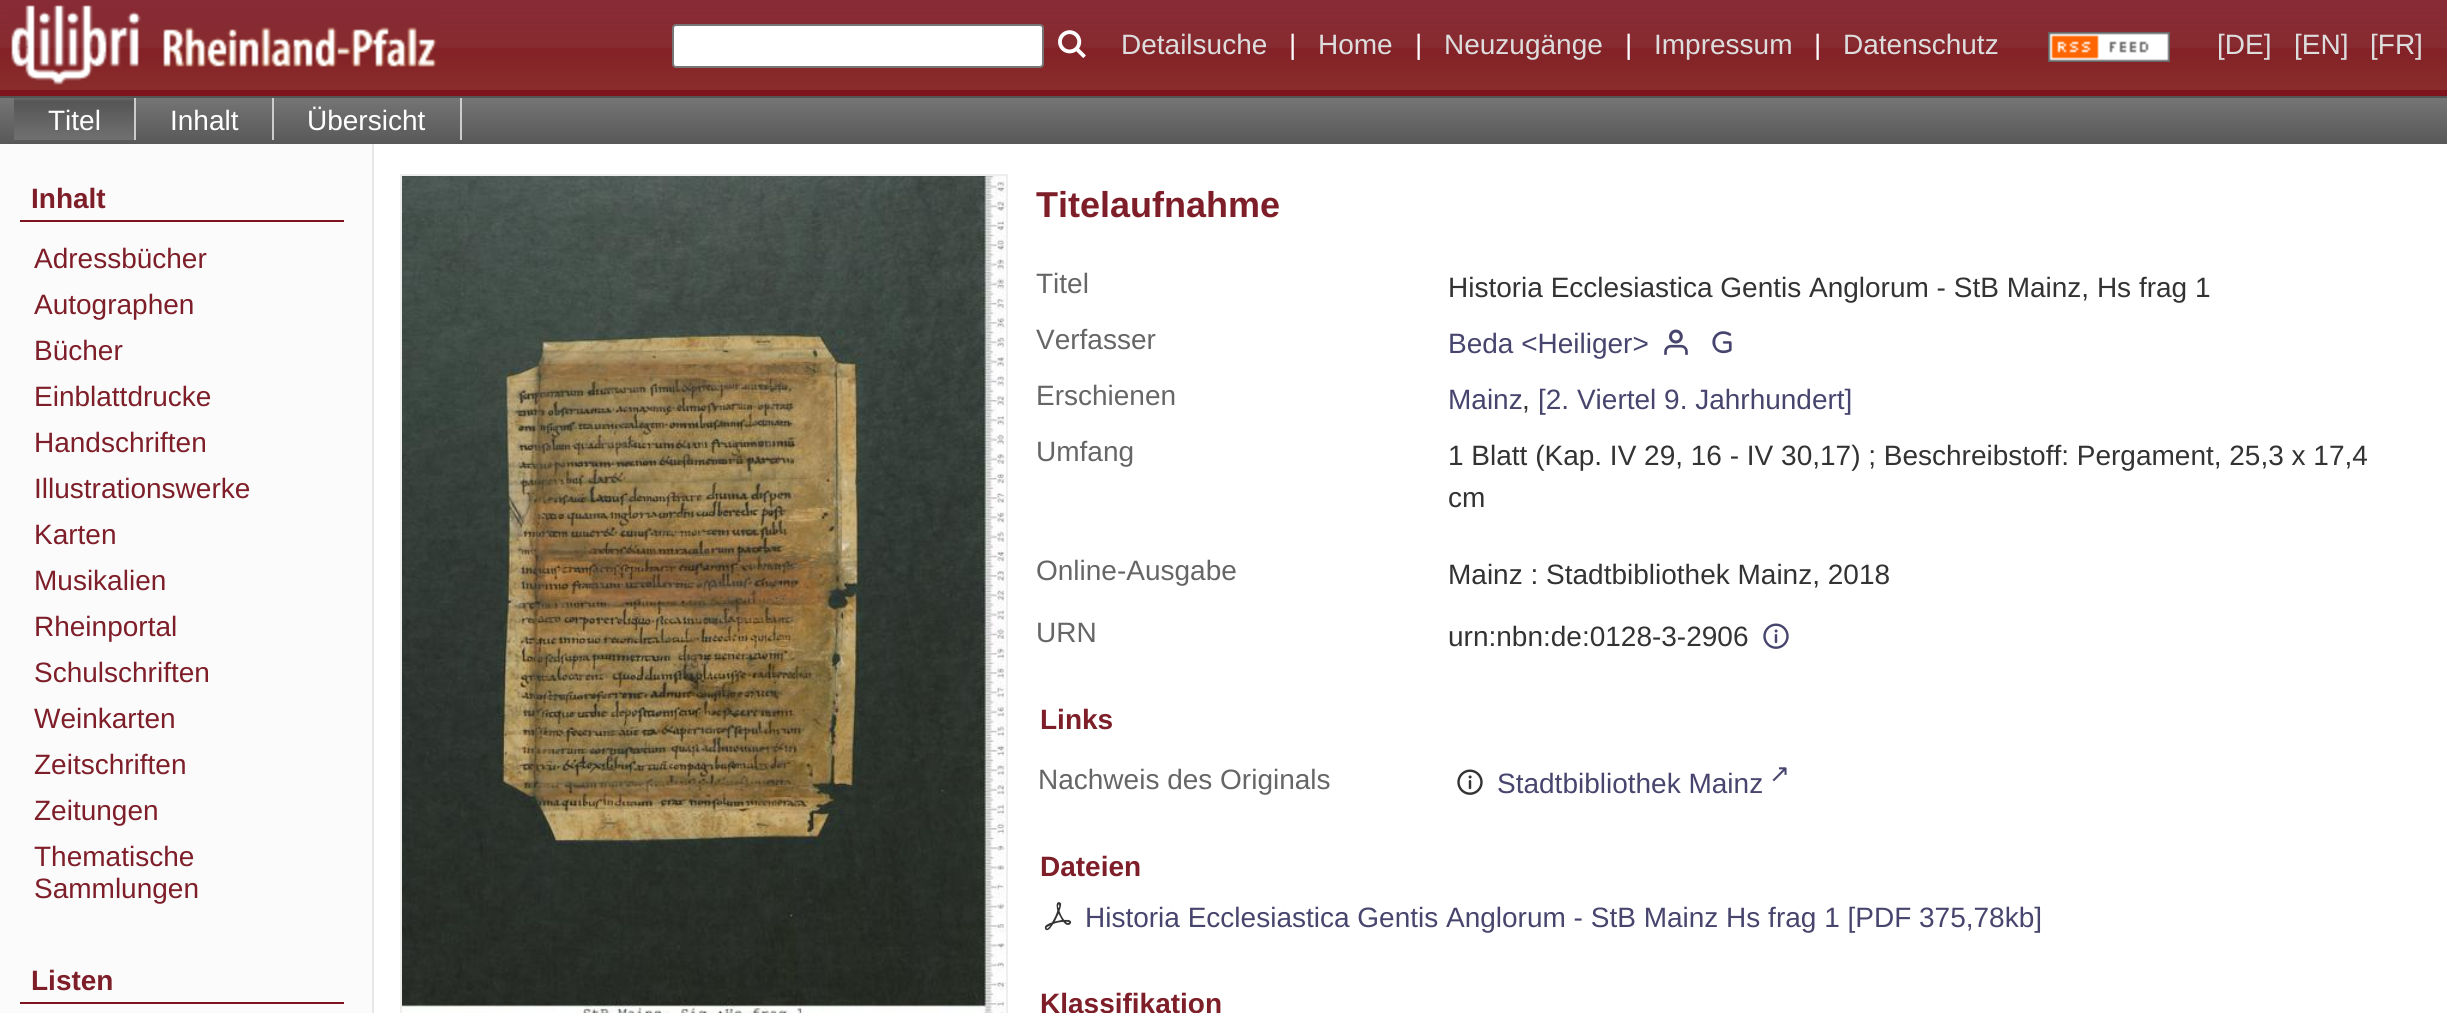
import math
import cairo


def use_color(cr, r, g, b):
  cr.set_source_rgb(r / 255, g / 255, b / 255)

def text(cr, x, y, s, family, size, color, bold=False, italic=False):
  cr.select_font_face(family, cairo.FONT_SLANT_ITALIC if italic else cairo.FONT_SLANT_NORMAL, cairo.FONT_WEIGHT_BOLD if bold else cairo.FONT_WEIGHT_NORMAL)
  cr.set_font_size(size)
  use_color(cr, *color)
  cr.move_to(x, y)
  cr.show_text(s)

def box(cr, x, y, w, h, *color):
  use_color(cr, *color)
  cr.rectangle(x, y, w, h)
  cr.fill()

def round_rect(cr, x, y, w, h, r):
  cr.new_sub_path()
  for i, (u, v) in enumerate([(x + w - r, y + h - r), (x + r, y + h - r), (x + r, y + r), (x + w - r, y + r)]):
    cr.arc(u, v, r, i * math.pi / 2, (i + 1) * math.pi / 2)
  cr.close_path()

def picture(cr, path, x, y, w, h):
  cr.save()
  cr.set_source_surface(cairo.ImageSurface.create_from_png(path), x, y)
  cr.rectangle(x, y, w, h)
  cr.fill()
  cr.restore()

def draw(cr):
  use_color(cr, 255, 255, 255)
  cr.paint()
  box(cr, 0, 90, 2447, 6, 125, 20, 30)
  picture(cr, "img_01.png", 0, 0, 2447, 90)
  picture(cr, "img_02.png", 11, 5, 426, 80)
  use_color(cr, 255, 255, 255)
  round_rect(cr, 673, 25, 370, 42, 3)
  cr.fill_preserve()
  use_color(cr, 118, 118, 118)
  cr.stroke()
  picture(cr, "img_03.png", 1058, 30, 28, 28)
  picture(cr, "img_04.png", 2048, 32, 122, 30)
  picture(cr, "img_05.png", 0, 98, 2447, 46)
  box(cr, 0, 96, 2447, 2, 85, 85, 85)
  picture(cr, "img_06.png", 14, 98, 120, 42)
  box(cr, 134, 98, 2, 42, 204, 204, 204)
  box(cr, 272, 98, 2, 42, 204, 204, 204)
  box(cr, 460, 98, 2, 42, 204, 204, 204)
  box(cr, 0, 144, 372, 869, 251, 251, 251)
  box(cr, 372, 144, 2, 869, 231, 231, 231)
  box(cr, 20, 220, 324, 2, 125, 20, 30)
  box(cr, 20, 1002, 324, 2, 125, 20, 30)
  cr.rectangle(401, 175, 606, 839)
  use_color(cr, 238, 238, 236)
  cr.stroke()
  picture(cr, "img_07.png", 402, 176, 604, 837)
  picture(cr, "img_08.png", 1664, 329, 24, 26)
  picture(cr, "img_09.png", 1712, 331, 20, 23)
  picture(cr, "img_10.png", 1763, 623, 26, 26)
  picture(cr, "img_11.png", 1457, 769, 26, 26)
  picture(cr, "img_12.png", 1044, 902, 28, 29)
  text(cr, 1121, 54, "Detailsuche", "Liberation Sans", 28, (221, 221, 221))
  text(cr, 1289, 54, "|", "Liberation Sans", 28, (255, 255, 255))
  text(cr, 1318, 54, "Home", "Liberation Sans", 28, (221, 221, 221))
  text(cr, 1415, 54, "|", "Liberation Sans", 28, (255, 255, 255))
  text(cr, 1444, 54, "Neuzugänge", "Liberation Sans", 28, (221, 221, 221))
  text(cr, 1625, 54, "|", "Liberation Sans", 28, (255, 255, 255))
  text(cr, 1654, 54, "Impressum", "Liberation Sans", 28, (221, 221, 221))
  text(cr, 1814, 54, "|", "Liberation Sans", 28, (255, 255, 255))
  text(cr, 1843, 54, "Datenschutz", "Liberation Sans", 28, (221, 221, 221))
  text(cr, 2217, 54, "[DE]", "Liberation Sans", 28, (221, 221, 221))
  text(cr, 2294, 54, "[EN]", "Liberation Sans", 28, (221, 221, 221))
  text(cr, 2370, 54, "[FR]", "Liberation Sans", 28, (221, 221, 221))
  text(cr, 48, 130, "Titel", "Liberation Sans", 28, (255, 255, 255))
  text(cr, 170, 130, "Inhalt", "Liberation Sans", 28, (255, 255, 255))
  text(cr, 307, 130, "Übersicht", "Liberation Sans", 28, (255, 255, 255))
  text(cr, 31, 208, "Inhalt", "Liberation Sans", 28, (126, 30, 41), bold=True)
  text(cr, 34, 268, "Adressbücher", "Liberation Sans", 28, (126, 30, 41))
  text(cr, 34, 314, "Autographen", "Liberation Sans", 28, (126, 30, 41))
  text(cr, 34, 360, "Bücher", "Liberation Sans", 28, (126, 30, 41))
  text(cr, 34, 406, "Einblattdrucke", "Liberation Sans", 28, (126, 30, 41))
  text(cr, 34, 452, "Handschriften", "Liberation Sans", 28, (126, 30, 41))
  text(cr, 34, 498, "Illustrationswerke", "Liberation Sans", 28, (126, 30, 41))
  text(cr, 34, 544, "Karten", "Liberation Sans", 28, (126, 30, 41))
  text(cr, 34, 590, "Musikalien", "Liberation Sans", 28, (126, 30, 41))
  text(cr, 34, 636, "Rheinportal", "Liberation Sans", 28, (126, 30, 41))
  text(cr, 34, 682, "Schulschriften", "Liberation Sans", 28, (126, 30, 41))
  text(cr, 34, 728, "Weinkarten", "Liberation Sans", 28, (126, 30, 41))
  text(cr, 34, 774, "Zeitschriften", "Liberation Sans", 28, (126, 30, 41))
  text(cr, 34, 820, "Zeitungen", "Liberation Sans", 28, (126, 30, 41))
  text(cr, 34, 866, "Thematische", "Liberation Sans", 28, (126, 30, 41))
  text(cr, 34, 898, "Sammlungen", "Liberation Sans", 28, (126, 30, 41))
  text(cr, 31, 990, "Listen", "Liberation Sans", 28, (126, 30, 41), bold=True)
  text(cr, 1036, 217, "Titelaufnahme", "Liberation Sans", 36, (126, 30, 41), bold=True)
  text(cr, 1036, 293, "Titel", "Liberation Sans", 28, (102, 102, 102))
  text(cr, 1448, 297, "Historia Ecclesiastica Gentis Anglorum - StB Mainz, Hs frag 1", "Liberation Sans", 28, (51, 51, 51))
  text(cr, 1036, 349, "Verfasser", "Liberation Sans", 28, (102, 102, 102))
  text(cr, 1448, 353, "Beda <Heiliger>", "Liberation Sans", 28, (71, 69, 109))
  text(cr, 1036, 405, "Erschienen", "Liberation Sans", 28, (102, 102, 102))
  text(cr, 1448, 409, "Mainz", "Liberation Sans", 28, (71, 69, 109))
  text(cr, 1522, 409, ",", "Liberation Sans", 28, (51, 51, 51))
  text(cr, 1538, 409, "[2. Viertel 9. Jahrhundert]", "Liberation Sans", 28, (71, 69, 109))
  text(cr, 1036, 461, "Umfang", "Liberation Sans", 28, (102, 102, 102))
  text(cr, 1448, 465, "1 Blatt (Kap. IV 29, 16 - IV 30,17) ; Beschreibstoff: Pergament, 25,3 x 17,4", "Liberation Sans", 28, (51, 51, 51))
  text(cr, 1448, 507, "cm", "Liberation Sans", 28, (51, 51, 51))
  text(cr, 1036, 580, "Online-Ausgabe", "Liberation Sans", 28, (102, 102, 102))
  text(cr, 1448, 584, "Mainz : Stadtbibliothek Mainz, 2018", "Liberation Sans", 28, (51, 51, 51))
  text(cr, 1036, 642, "URN", "Liberation Sans", 28, (102, 102, 102))
  text(cr, 1448, 646, "urn:nbn:de:0128-3-2906", "Liberation Sans", 28, (51, 51, 51))
  text(cr, 1040, 729, "Links", "Liberation Sans", 28, (126, 30, 41), bold=True)
  text(cr, 1038, 789, "Nachweis des Originals", "Liberation Sans", 28, (102, 102, 102))
  text(cr, 1497, 793, "Stadtbibliothek Mainz", "Liberation Sans", 28, (71, 69, 109))
  text(cr, 1769, 782, "↗", "DejaVu Sans", 25, (71, 69, 109))
  text(cr, 1040, 876, "Dateien", "Liberation Sans", 28, (126, 30, 41), bold=True)
  text(cr, 1085, 927, "Historia Ecclesiastica Gentis Anglorum - StB Mainz Hs frag 1 [PDF 375,78kb]", "Liberation Sans", 28, (71, 69, 109))
  text(cr, 1040, 1013, "Klassifikation", "Liberation Sans", 28, (126, 30, 41), bold=True)


surface = cairo.ImageSurface(cairo.FORMAT_RGB24, 2447, 1013)
cr = cairo.Context(surface)
options = cairo.FontOptions()
options.set_hint_metrics(cairo.HINT_METRICS_OFF)
options.set_hint_style(cairo.HINT_STYLE_NONE)
cr.set_font_options(options)
cr.set_miter_limit(4)
draw(cr)
surface.write_to_png("out.png")
